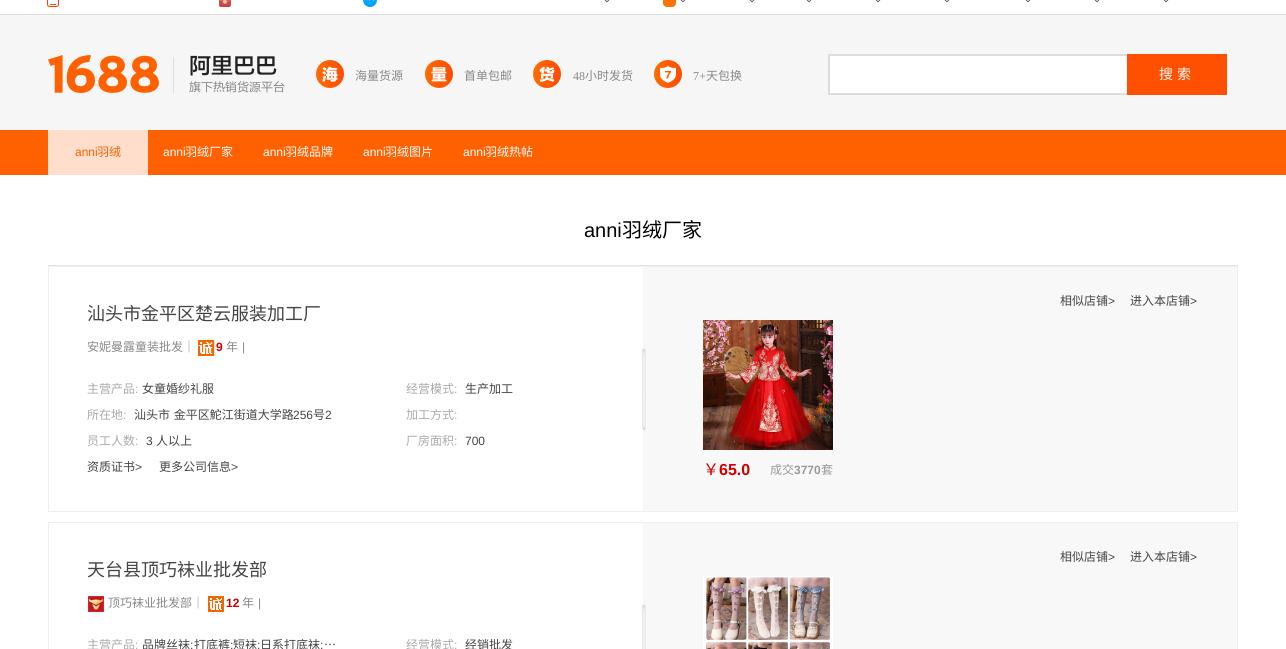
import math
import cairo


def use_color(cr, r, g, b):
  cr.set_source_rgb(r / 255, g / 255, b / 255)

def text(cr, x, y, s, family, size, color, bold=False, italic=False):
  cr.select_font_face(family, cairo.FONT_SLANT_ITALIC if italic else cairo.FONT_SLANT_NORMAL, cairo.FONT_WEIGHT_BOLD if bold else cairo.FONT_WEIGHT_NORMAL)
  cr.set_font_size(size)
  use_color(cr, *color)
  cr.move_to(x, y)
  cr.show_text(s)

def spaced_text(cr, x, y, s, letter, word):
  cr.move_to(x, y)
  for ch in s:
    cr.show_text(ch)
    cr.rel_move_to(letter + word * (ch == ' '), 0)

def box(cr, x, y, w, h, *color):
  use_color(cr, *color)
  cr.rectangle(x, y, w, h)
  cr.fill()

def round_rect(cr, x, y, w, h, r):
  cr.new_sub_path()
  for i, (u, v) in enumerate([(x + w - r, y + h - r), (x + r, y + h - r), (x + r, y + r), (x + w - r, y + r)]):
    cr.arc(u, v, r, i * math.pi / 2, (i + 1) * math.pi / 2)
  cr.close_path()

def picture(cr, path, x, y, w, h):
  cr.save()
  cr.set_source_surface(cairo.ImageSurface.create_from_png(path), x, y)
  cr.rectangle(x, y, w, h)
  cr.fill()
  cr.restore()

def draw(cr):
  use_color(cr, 255, 255, 255)
  cr.paint()
  box(cr, 0, 14, 1286, 1, 221, 221, 221)
  round_rect(cr, 47.5, -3.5, 11, 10, 2)
  use_color(cr, 255, 64, 0)
  cr.set_line_width(1)
  cr.stroke()
  cr.new_path()
  cr.move_to(50.5, 4.5)
  cr.line_to(55.5, 4.5)
  cr.set_line_cap(cairo.LINE_CAP_ROUND)
  cr.set_line_join(cairo.LINE_JOIN_ROUND)
  cr.stroke()
  picture(cr, "img_01.png", 219, 0, 12, 7)
  picture(cr, "img_02.png", 363, 0, 14, 7)
  picture(cr, "img_03.png", 604, 0, 6, 3)
  use_color(cr, 255, 115, 0)
  round_rect(cr, 663, -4, 13, 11, 4)
  cr.fill()
  picture(cr, "img_03.png", 680, 0, 6, 3)
  picture(cr, "img_03.png", 749, 0, 6, 3)
  picture(cr, "img_03.png", 806, 0, 6, 3)
  picture(cr, "img_03.png", 875, 0, 6, 3)
  picture(cr, "img_03.png", 944, 0, 6, 3)
  picture(cr, "img_03.png", 1025, 0, 6, 3)
  picture(cr, "img_03.png", 1094, 0, 6, 3)
  picture(cr, "img_03.png", 1163, 0, 6, 3)
  box(cr, 0, 15, 1286, 115, 246, 246, 246)
  picture(cr, "img_04.png", 48, 55, 111, 38)
  box(cr, 173, 57, 1, 36, 223, 223, 223)
  picture(cr, "img_05.png", 189, 55, 96, 38)
  picture(cr, "img_06.png", 316, 60, 28, 28)
  picture(cr, "img_07.png", 425, 60, 28, 28)
  picture(cr, "img_08.png", 533, 60, 28, 28)
  picture(cr, "img_09.png", 654, 60, 28, 28)
  use_color(cr, 255, 255, 255)
  cr.rectangle(829, 55, 299, 39)
  cr.fill_preserve()
  use_color(cr, 221, 221, 221)
  cr.set_line_width(2)
  cr.set_line_cap(cairo.LINE_CAP_BUTT)
  cr.set_line_join(cairo.LINE_JOIN_MITER)
  cr.stroke()
  box(cr, 1127, 54, 100, 41, 255, 79, 0)
  box(cr, 0, 130, 1286, 45, 255, 96, 0)
  box(cr, 48, 130, 100, 45, 255, 223, 204)
  box(cr, 48, 265, 1190, 1, 229, 229, 229)
  cr.rectangle(48.5, 266.5, 1189, 245)
  use_color(cr, 238, 238, 238)
  cr.set_line_width(1)
  cr.stroke()
  picture(cr, "img_10.png", 198, 340, 17, 16)
  box(cr, 643, 267, 594, 244, 248, 248, 248)
  picture(cr, "img_11.png", 642, 348, 4, 83)
  picture(cr, "img_12.png", 703, 320, 130, 130)
  cr.rectangle(48.5, 522.5, 1189, 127)
  use_color(cr, 238, 238, 238)
  cr.stroke()
  box(cr, 643, 523, 594, 126, 248, 248, 248)
  picture(cr, "img_13.png", 703, 576, 130, 73)
  picture(cr, "img_14.png", 88, 596, 16, 16)
  picture(cr, "img_15.png", 208, 596, 16, 16)
  picture(cr, "img_16.png", 642, 604, 4, 45)
  text(cr, 355, 80, "海量货源", "Noto Sans CJK SC", 12, (136, 136, 136))
  text(cr, 464, 80, "首单包邮", "Noto Sans CJK SC", 12, (136, 136, 136))
  text(cr, 573, 80, "48", "Liberation Serif", 12, (136, 136, 136))
  text(cr, 585, 80, "小时发货", "Noto Sans CJK SC", 12, (136, 136, 136))
  text(cr, 693, 80, "7+", "Liberation Serif", 12, (136, 136, 136))
  text(cr, 706, 80, "天包换", "Noto Sans CJK SC", 12, (136, 136, 136))
  cr.set_font_size(14)
  use_color(cr, 255, 255, 255)
  spaced_text(cr, 1159, 79, "搜索", 4, 0)
  text(cr, 75, 156, "anni", "Liberation Sans", 12, (255, 96, 0))
  text(cr, 97, 156, "羽绒", "Noto Sans CJK SC", 12, (255, 96, 0))
  text(cr, 163, 156, "anni", "Liberation Sans", 12, (255, 255, 255))
  text(cr, 185, 156, "羽绒", "Noto Sans CJK SC", 12, (255, 255, 255))
  text(cr, 209, 156, "厂家", "Noto Sans CJK SC", 12, (255, 255, 255))
  text(cr, 263, 156, "anni", "Liberation Sans", 12, (255, 255, 255))
  text(cr, 285, 156, "羽绒", "Noto Sans CJK SC", 12, (255, 255, 255))
  text(cr, 309, 156, "品牌", "Noto Sans CJK SC", 12, (255, 255, 255))
  text(cr, 363, 156, "anni", "Liberation Sans", 12, (255, 255, 255))
  text(cr, 385, 156, "羽绒", "Noto Sans CJK SC", 12, (255, 255, 255))
  text(cr, 409, 156, "图片", "Noto Sans CJK SC", 12, (255, 255, 255))
  text(cr, 463, 156, "anni", "Liberation Sans", 12, (255, 255, 255))
  text(cr, 485, 156, "羽绒", "Noto Sans CJK SC", 12, (255, 255, 255))
  text(cr, 509, 156, "热帖", "Noto Sans CJK SC", 12, (255, 255, 255))
  text(cr, 584, 237, "anni", "Liberation Sans", 20, (0, 0, 0))
  text(cr, 622, 237, "羽绒厂家", "Noto Sans CJK SC", 20, (0, 0, 0))
  cr.save()
  cr.rectangle(87, 305, 234, 18)
  cr.clip()
  text(cr, 87, 320, "汕头市金平区楚云服装加工厂", "Noto Sans CJK SC", 18, (68, 68, 68))
  cr.restore()
  text(cr, 87, 351, "安妮曼露童装批发｜", "Noto Sans CJK SC", 12, (136, 136, 136))
  text(cr, 216, 351, "9", "Liberation Sans", 12, (204, 0, 0), bold=True)
  text(cr, 226, 351, "年", "Noto Sans CJK SC", 12, (136, 136, 136))
  text(cr, 242, 351, "|", "Liberation Sans", 12, (136, 136, 136))
  text(cr, 87, 393, "主营产品", "Noto Sans CJK SC", 12, (170, 170, 170))
  text(cr, 135, 393, ":", "Liberation Sans", 12, (170, 170, 170))
  text(cr, 142, 393, "女童婚纱礼服", "Noto Sans CJK SC", 12, (68, 68, 68))
  text(cr, 87, 419, "所在地", "Noto Sans CJK SC", 12, (170, 170, 170))
  text(cr, 123, 419, ":", "Liberation Sans", 12, (170, 170, 170))
  cr.select_font_face("Noto Sans CJK SC")
  use_color(cr, 68, 68, 68)
  spaced_text(cr, 134, 419, "汕头市 金平区鮀江街道大学路", 0, 1)
  text(cr, 293, 419, "256", "Liberation Sans", 12, (68, 68, 68))
  text(cr, 313, 419, "号", "Noto Sans CJK SC", 12, (68, 68, 68))
  text(cr, 325, 419, "2", "Liberation Sans", 12, (68, 68, 68))
  text(cr, 87, 445, "员工人数", "Noto Sans CJK SC", 12, (170, 170, 170))
  text(cr, 135, 445, ":", "Liberation Sans", 12, (170, 170, 170))
  text(cr, 146, 445, "3", "Liberation Sans", 12, (68, 68, 68))
  text(cr, 156, 445, "人以上", "Noto Sans CJK SC", 12, (68, 68, 68))
  text(cr, 87, 471, "资质证书", "Noto Sans CJK SC", 12, (68, 68, 68))
  text(cr, 135, 471, ">", "Liberation Sans", 12, (68, 68, 68))
  text(cr, 159, 471, "更多公司信息", "Noto Sans CJK SC", 12, (68, 68, 68))
  text(cr, 231, 471, ">", "Liberation Sans", 12, (68, 68, 68))
  text(cr, 406, 393, "经营模式", "Noto Sans CJK SC", 12, (170, 170, 170))
  text(cr, 454, 393, ":", "Liberation Sans", 12, (170, 170, 170))
  text(cr, 465, 393, "生产加工", "Noto Sans CJK SC", 12, (68, 68, 68))
  text(cr, 406, 419, "加工方式", "Noto Sans CJK SC", 12, (170, 170, 170))
  text(cr, 454, 419, ":", "Liberation Sans", 12, (170, 170, 170))
  text(cr, 406, 445, "厂房面积", "Noto Sans CJK SC", 12, (170, 170, 170))
  text(cr, 454, 445, ":", "Liberation Sans", 12, (170, 170, 170))
  text(cr, 465, 445, "700", "Liberation Sans", 12, (68, 68, 68))
  text(cr, 1060, 305, "相似店铺", "Noto Sans CJK SC", 12, (68, 68, 68))
  text(cr, 1108, 305, ">", "Liberation Sans", 12, (68, 68, 68))
  text(cr, 1130, 305, "进入本店铺", "Noto Sans CJK SC", 12, (68, 68, 68))
  text(cr, 1190, 305, ">", "Liberation Sans", 12, (68, 68, 68))
  text(cr, 703, 475, "￥", "Noto Sans CJK SC", 16, (204, 0, 0))
  text(cr, 719, 475, "65.0", "Liberation Sans", 16, (204, 0, 0), bold=True)
  text(cr, 770, 474, "成交", "Noto Sans CJK SC", 12, (153, 153, 153))
  text(cr, 794, 474, "3770", "Liberation Sans", 12, (153, 153, 153), bold=True)
  text(cr, 821, 474, "套", "Noto Sans CJK SC", 12, (153, 153, 153))
  text(cr, 1060, 561, "相似店铺", "Noto Sans CJK SC", 12, (68, 68, 68))
  text(cr, 1108, 561, ">", "Liberation Sans", 12, (68, 68, 68))
  text(cr, 1130, 561, "进入本店铺", "Noto Sans CJK SC", 12, (68, 68, 68))
  text(cr, 1190, 561, ">", "Liberation Sans", 12, (68, 68, 68))
  cr.save()
  cr.rectangle(87, 561, 180, 18)
  cr.clip()
  text(cr, 87, 576, "天台县顶巧袜业批发部", "Noto Sans CJK SC", 18, (68, 68, 68))
  cr.restore()
  text(cr, 108, 607, "顶巧袜业批发部｜", "Noto Sans CJK SC", 12, (136, 136, 136))
  text(cr, 226, 607, "12", "Liberation Sans", 12, (204, 0, 0), bold=True)
  text(cr, 242, 607, "年", "Noto Sans CJK SC", 12, (136, 136, 136))
  text(cr, 258, 607, "|", "Liberation Sans", 12, (136, 136, 136))
  text(cr, 87, 649, "主营产品", "Noto Sans CJK SC", 12, (170, 170, 170))
  text(cr, 135, 649, ":", "Liberation Sans", 12, (170, 170, 170))
  text(cr, 142, 649, "品牌丝袜", "Noto Sans CJK SC", 12, (68, 68, 68))
  text(cr, 190, 649, ";", "Liberation Sans", 12, (68, 68, 68))
  text(cr, 194, 649, "打底裤", "Noto Sans CJK SC", 12, (68, 68, 68))
  text(cr, 230, 649, ";", "Liberation Sans", 12, (68, 68, 68))
  text(cr, 233, 649, "短袜", "Noto Sans CJK SC", 12, (68, 68, 68))
  text(cr, 257, 649, ";", "Liberation Sans", 12, (68, 68, 68))
  text(cr, 260, 649, "日系打底袜", "Noto Sans CJK SC", 12, (68, 68, 68))
  text(cr, 320, 649, ";", "Liberation Sans", 12, (68, 68, 68))
  text(cr, 324, 649, "…", "Noto Sans CJK SC", 12, (68, 68, 68))
  text(cr, 406, 649, "经营模式", "Noto Sans CJK SC", 12, (170, 170, 170))
  text(cr, 454, 649, ":", "Liberation Sans", 12, (170, 170, 170))
  text(cr, 465, 649, "经销批发", "Noto Sans CJK SC", 12, (68, 68, 68))


surface = cairo.ImageSurface(cairo.FORMAT_RGB24, 1286, 649)
cr = cairo.Context(surface)
options = cairo.FontOptions()
options.set_hint_metrics(cairo.HINT_METRICS_OFF)
options.set_hint_style(cairo.HINT_STYLE_NONE)
cr.set_font_options(options)
cr.set_miter_limit(4)
draw(cr)
surface.write_to_png("out.png")
